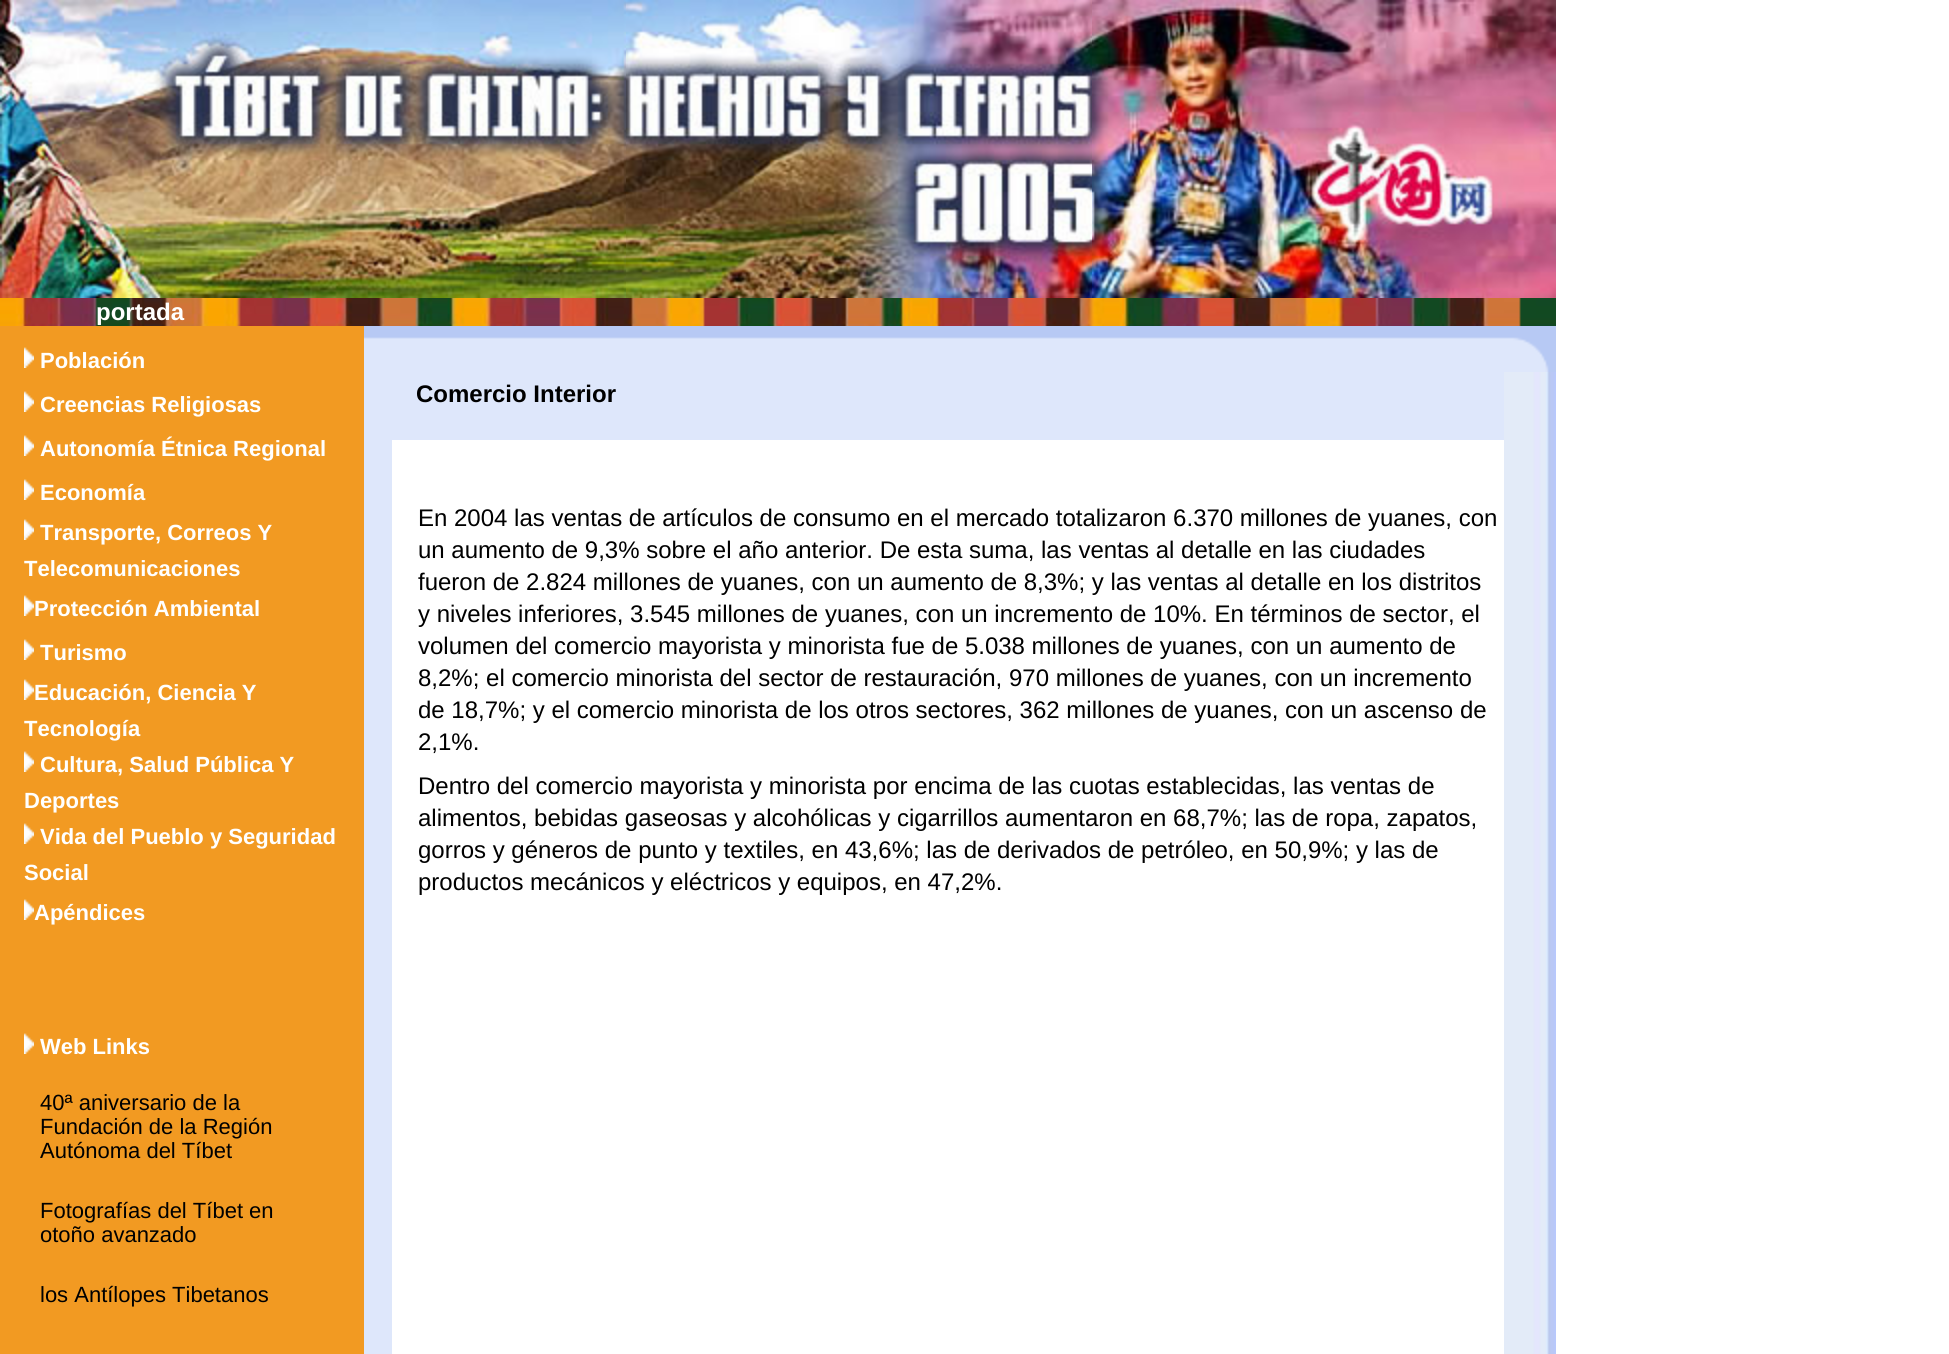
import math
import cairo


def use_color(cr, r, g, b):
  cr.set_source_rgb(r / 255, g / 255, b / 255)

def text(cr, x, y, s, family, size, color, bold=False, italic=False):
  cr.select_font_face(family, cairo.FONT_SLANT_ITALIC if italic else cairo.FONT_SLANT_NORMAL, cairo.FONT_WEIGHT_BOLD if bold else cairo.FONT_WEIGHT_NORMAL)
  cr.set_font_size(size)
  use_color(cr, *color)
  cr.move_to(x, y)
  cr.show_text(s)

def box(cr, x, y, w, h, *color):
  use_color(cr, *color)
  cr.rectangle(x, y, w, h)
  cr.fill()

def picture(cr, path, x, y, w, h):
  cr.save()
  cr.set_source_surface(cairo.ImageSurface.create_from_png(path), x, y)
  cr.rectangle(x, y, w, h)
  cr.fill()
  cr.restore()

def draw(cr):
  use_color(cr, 255, 255, 255)
  cr.paint()
  picture(cr, "img_01.png", 0, 0, 626, 298)
  picture(cr, "img_02.png", 626, 0, 466, 298)
  picture(cr, "img_03.png", 1092, 0, 464, 298)
  picture(cr, "img_04.png", 0, 298, 1556, 28)
  box(cr, 0, 326, 364, 1028, 242, 154, 34)
  picture(cr, "img_05.png", 24, 347, 10, 21)
  picture(cr, "img_05.png", 24, 391, 10, 21)
  picture(cr, "img_05.png", 24, 435, 10, 21)
  picture(cr, "img_05.png", 24, 479, 10, 21)
  picture(cr, "img_05.png", 24, 519, 10, 21)
  picture(cr, "img_05.png", 24, 595, 10, 21)
  picture(cr, "img_05.png", 24, 639, 10, 21)
  picture(cr, "img_05.png", 24, 679, 10, 21)
  picture(cr, "img_05.png", 24, 751, 10, 21)
  picture(cr, "img_05.png", 24, 823, 10, 21)
  picture(cr, "img_05.png", 24, 899, 10, 21)
  picture(cr, "img_05.png", 24, 1033, 10, 21)
  picture(cr, "img_06.png", 364, 326, 1192, 46)
  box(cr, 364, 372, 1140, 982, 222, 231, 251)
  box(cr, 392, 440, 1112, 914, 255, 255, 255)
  picture(cr, "img_07.png", 1504, 372, 52, 982)
  text(cr, 96, 320, "portada", "Liberation Sans", 24, (255, 255, 255), bold=True)
  text(cr, 40, 368, "Población", "Liberation Sans", 22, (255, 255, 255), bold=True)
  text(cr, 40, 412, "Creencias Religiosas", "Liberation Sans", 22, (255, 255, 255), bold=True)
  text(cr, 40, 456, "Autonomía Étnica Regional", "Liberation Sans", 22, (255, 255, 255), bold=True)
  text(cr, 40, 500, "Economía", "Liberation Sans", 22, (255, 255, 255), bold=True)
  text(cr, 40, 540, "Transporte, Correos Y", "Liberation Sans", 22, (255, 255, 255), bold=True)
  text(cr, 24, 576, "Telecomunicaciones", "Liberation Sans", 22, (255, 255, 255), bold=True)
  text(cr, 34, 616, "Protección Ambiental", "Liberation Sans", 22, (255, 255, 255), bold=True)
  text(cr, 40, 660, "Turismo", "Liberation Sans", 22, (255, 255, 255), bold=True)
  text(cr, 34, 700, "Educación, Ciencia Y", "Liberation Sans", 22, (255, 255, 255), bold=True)
  text(cr, 24, 736, "Tecnología", "Liberation Sans", 22, (255, 255, 255), bold=True)
  text(cr, 40, 772, "Cultura, Salud Pública Y", "Liberation Sans", 22, (255, 255, 255), bold=True)
  text(cr, 24, 808, "Deportes", "Liberation Sans", 22, (255, 255, 255), bold=True)
  text(cr, 40, 844, "Vida del Pueblo y Seguridad", "Liberation Sans", 22, (255, 255, 255), bold=True)
  text(cr, 24, 880, "Social", "Liberation Sans", 22, (255, 255, 255), bold=True)
  text(cr, 34, 920, "Apéndices", "Liberation Sans", 22, (255, 255, 255), bold=True)
  text(cr, 40, 1054, "Web Links", "Liberation Sans", 22, (255, 255, 255), bold=True)
  text(cr, 40, 1110, "40ª aniversario de la", "Liberation Sans", 22, (0, 0, 0))
  text(cr, 40, 1134, "Fundación de la Región", "Liberation Sans", 22, (0, 0, 0))
  text(cr, 40, 1158, "Autónoma del Tíbet", "Liberation Sans", 22, (0, 0, 0))
  text(cr, 40, 1218, "Fotografías del Tíbet en", "Liberation Sans", 22, (0, 0, 0))
  text(cr, 40, 1242, "otoño avanzado", "Liberation Sans", 22, (0, 0, 0))
  text(cr, 40, 1302, "los Antílopes Tibetanos", "Liberation Sans", 22, (0, 0, 0))
  text(cr, 416, 402, "Comercio Interior", "Liberation Sans", 24, (0, 0, 0), bold=True)
  text(cr, 418, 526, "En 2004 las ventas de artículos de consumo en el mercado totalizaron 6.370 millones de yuanes, con", "Liberation Sans", 24, (0, 0, 0))
  text(cr, 418, 558, "un aumento de 9,3% sobre el año anterior. De esta suma, las ventas al detalle en las ciudades", "Liberation Sans", 24, (0, 0, 0))
  text(cr, 418, 590, "fueron de 2.824 millones de yuanes, con un aumento de 8,3%; y las ventas al detalle en los distritos", "Liberation Sans", 24, (0, 0, 0))
  text(cr, 418, 622, "y niveles inferiores, 3.545 millones de yuanes, con un incremento de 10%. En términos de sector, el", "Liberation Sans", 24, (0, 0, 0))
  text(cr, 418, 654, "volumen del comercio mayorista y minorista fue de 5.038 millones de yuanes, con un aumento de", "Liberation Sans", 24, (0, 0, 0))
  text(cr, 418, 686, "8,2%; el comercio minorista del sector de restauración, 970 millones de yuanes, con un incremento", "Liberation Sans", 24, (0, 0, 0))
  text(cr, 418, 718, "de 18,7%; y el comercio minorista de los otros sectores, 362 millones de yuanes, con un ascenso de", "Liberation Sans", 24, (0, 0, 0))
  text(cr, 418, 750, "2,1%.", "Liberation Sans", 24, (0, 0, 0))
  text(cr, 418, 794, "Dentro del comercio mayorista y minorista por encima de las cuotas establecidas, las ventas de", "Liberation Sans", 24, (0, 0, 0))
  text(cr, 418, 826, "alimentos, bebidas gaseosas y alcohólicas y cigarrillos aumentaron en 68,7%; las de ropa, zapatos,", "Liberation Sans", 24, (0, 0, 0))
  text(cr, 418, 858, "gorros y géneros de punto y textiles, en 43,6%; las de derivados de petróleo, en 50,9%; y las de", "Liberation Sans", 24, (0, 0, 0))
  text(cr, 418, 890, "productos mecánicos y eléctricos y equipos, en 47,2%.", "Liberation Sans", 24, (0, 0, 0))


surface = cairo.ImageSurface(cairo.FORMAT_RGB24, 1949, 1354)
cr = cairo.Context(surface)
options = cairo.FontOptions()
options.set_hint_metrics(cairo.HINT_METRICS_OFF)
options.set_hint_style(cairo.HINT_STYLE_NONE)
cr.set_font_options(options)
cr.set_miter_limit(4)
draw(cr)
surface.write_to_png("out.png")
